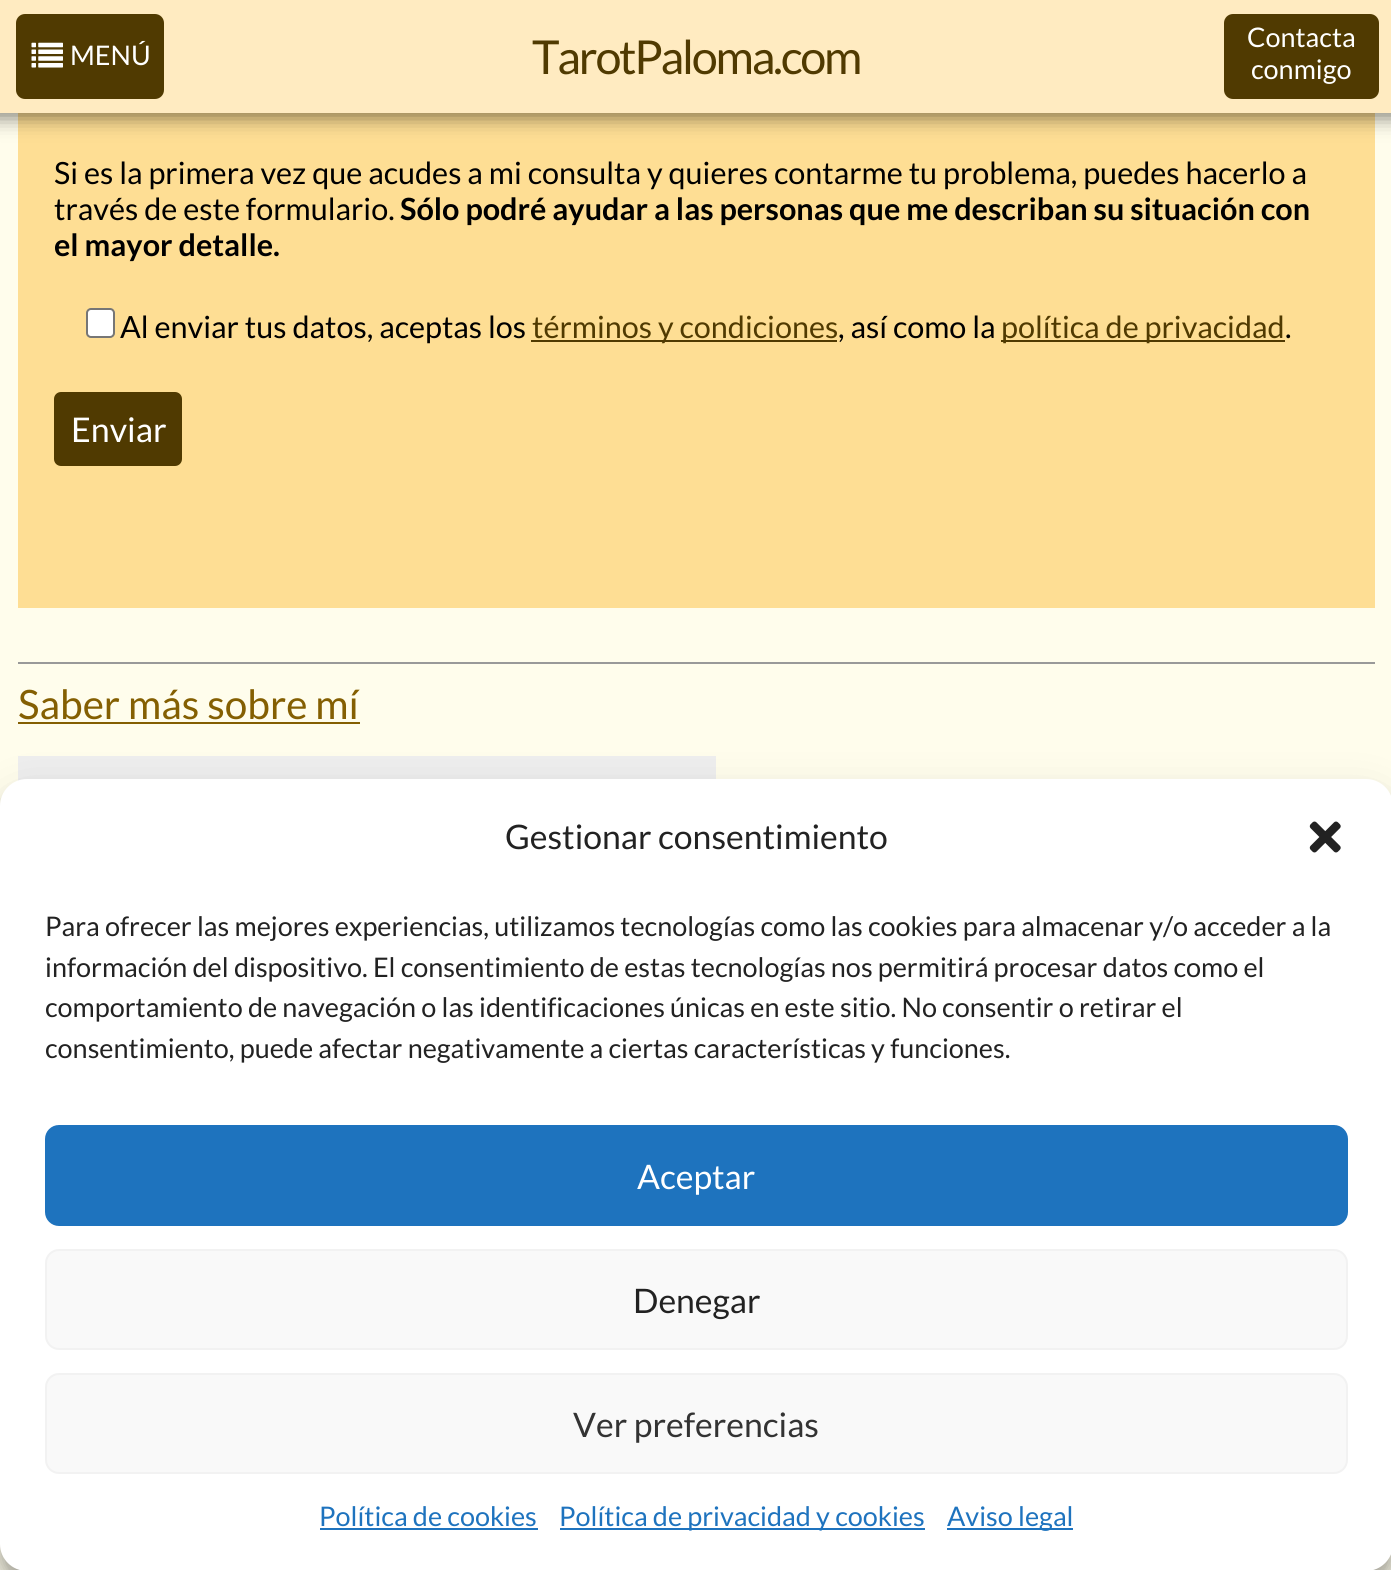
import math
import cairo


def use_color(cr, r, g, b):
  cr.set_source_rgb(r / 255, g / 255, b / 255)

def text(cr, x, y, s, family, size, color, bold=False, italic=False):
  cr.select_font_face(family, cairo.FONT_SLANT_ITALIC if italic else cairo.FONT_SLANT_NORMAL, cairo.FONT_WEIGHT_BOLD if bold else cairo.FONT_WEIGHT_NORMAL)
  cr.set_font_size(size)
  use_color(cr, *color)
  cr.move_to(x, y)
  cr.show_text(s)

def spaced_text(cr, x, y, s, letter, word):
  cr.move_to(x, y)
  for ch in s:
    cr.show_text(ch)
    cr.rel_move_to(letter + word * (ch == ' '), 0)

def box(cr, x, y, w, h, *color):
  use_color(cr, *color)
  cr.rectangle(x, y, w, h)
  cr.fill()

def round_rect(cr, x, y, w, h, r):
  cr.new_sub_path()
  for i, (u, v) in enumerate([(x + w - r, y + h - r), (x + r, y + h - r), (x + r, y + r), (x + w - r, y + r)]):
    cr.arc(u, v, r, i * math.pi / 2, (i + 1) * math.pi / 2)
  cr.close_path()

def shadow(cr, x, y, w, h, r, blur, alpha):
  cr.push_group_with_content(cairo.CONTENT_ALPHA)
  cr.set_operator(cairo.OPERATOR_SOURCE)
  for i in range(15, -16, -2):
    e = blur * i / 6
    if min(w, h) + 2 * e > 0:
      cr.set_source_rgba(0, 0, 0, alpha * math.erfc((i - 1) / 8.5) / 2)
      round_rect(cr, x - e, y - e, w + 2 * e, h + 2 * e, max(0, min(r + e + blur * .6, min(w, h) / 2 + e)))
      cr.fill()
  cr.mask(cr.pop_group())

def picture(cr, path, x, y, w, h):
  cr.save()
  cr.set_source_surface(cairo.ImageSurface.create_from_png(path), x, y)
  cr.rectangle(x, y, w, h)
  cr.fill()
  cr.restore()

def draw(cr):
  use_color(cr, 255, 253, 236)
  cr.paint()
  box(cr, 18, 113, 1357, 495, 254, 222, 148)
  use_color(cr, 0, 0, 0)
  shadow(cr, -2, 110, 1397, 5, 0, 11, 0.6)
  box(cr, 0, 0, 1391, 113, 255, 235, 193)
  use_color(cr, 80, 58, 1)
  round_rect(cr, 16, 14, 148, 85, 9)
  cr.fill()
  picture(cr, "img_01.png", 31, 42, 32, 26)
  round_rect(cr, 1224, 14, 155, 85, 9)
  cr.fill()
  use_color(cr, 255, 255, 255)
  round_rect(cr, 87, 309, 27, 28, 4)
  cr.fill_preserve()
  use_color(cr, 118, 118, 118)
  cr.stroke()
  box(cr, 531, 340, 306, 2, 80, 58, 1)
  box(cr, 1001, 340, 284, 2, 80, 58, 1)
  round_rect(cr, 54, 392, 128, 74, 7)
  cr.fill()
  box(cr, 18, 662, 1357, 2, 153, 153, 153)
  box(cr, 18, 722, 342, 2, 132, 95, 2)
  box(cr, 18, 756, 698, 25, 238, 238, 238)
  box(cr, 18, 1569, 2, 1, 238, 238, 238)
  use_color(cr, 0, 0, 0)
  shadow(cr, 0, 792, 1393, 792, 27, 7, 0.23)
  shadow(cr, 0, 801, 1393, 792, 27, 22.5, 0.19)
  use_color(cr, 255, 255, 255)
  round_rect(cr, 0, 779, 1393, 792, 27)
  cr.fill()
  picture(cr, "img_02.png", 1309, 821, 32, 32)
  use_color(cr, 30, 115, 190)
  round_rect(cr, 46, 1126, 1301, 99, 13)
  cr.fill_preserve()
  cr.stroke()
  use_color(cr, 249, 249, 249)
  round_rect(cr, 46, 1250, 1301, 99, 13)
  cr.fill_preserve()
  use_color(cr, 242, 242, 242)
  cr.stroke()
  use_color(cr, 249, 249, 249)
  round_rect(cr, 46, 1374, 1301, 99, 13)
  cr.fill_preserve()
  use_color(cr, 242, 242, 242)
  cr.stroke()
  box(cr, 320, 1528, 218, 2, 30, 115, 190)
  box(cr, 560, 1528, 365, 2, 30, 115, 190)
  box(cr, 947, 1528, 126, 2, 30, 115, 190)
  text(cr, 70, 65, "MENÚ", "Lato", 27, (255, 255, 255))
  cr.set_font_size(46.75)
  use_color(cr, 80, 58, 1)
  spaced_text(cr, 532, 74, "TarotPaloma.com", -2.25, 0)
  text(cr, 1247, 47, "Contacta", "Lato", 27, (255, 255, 255))
  text(cr, 1251, 79, "conmigo", "Lato", 27, (255, 255, 255))
  text(cr, 54, 184, "Si es la primera vez que acudes a mi consulta y quieres contarme tu problema, puedes hacerlo a", "Lato", 30.6, (0, 0, 0))
  text(cr, 54, 220, "través de este formulario.", "Lato", 30.6, (0, 0, 0))
  text(cr, 400, 220, "Sólo podré ayudar a las personas que me describan su situación con", "Lato", 30.6, (0, 0, 0), bold=True)
  text(cr, 54, 256, "el mayor detalle.", "Lato", 30.6, (0, 0, 0), bold=True)
  text(cr, 120, 338, "Al enviar tus datos, aceptas los", "Lato", 30.6, (0, 0, 0))
  text(cr, 532, 338, "términos y condiciones", "Lato", 30.6, (80, 58, 1))
  text(cr, 838, 338, ", así como la", "Lato", 30.6, (0, 0, 0))
  text(cr, 1001, 338, "política de privacidad", "Lato", 30.6, (80, 58, 1))
  text(cr, 1285, 338, ".", "Lato", 30.6, (0, 0, 0))
  text(cr, 71, 442, "Enviar", "Lato", 34, (255, 255, 255))
  text(cr, 18, 719, "Saber más sobre mí", "Lato", 40.5, (132, 95, 2))
  text(cr, 505, 849, "Gestionar consentimiento", "Lato", 33.75, (34, 34, 34))
  text(cr, 45, 936, "Para ofrecer las mejores experiencias, utilizamos tecnologías como las cookies para almacenar y/o acceder a la", "Lato", 27, (34, 34, 34))
  text(cr, 45, 977, "información del dispositivo. El consentimiento de estas tecnologías nos permitirá procesar datos como el", "Lato", 27, (34, 34, 34))
  text(cr, 45, 1017, "comportamiento de navegación o las identificaciones únicas en este sitio. No consentir o retirar el", "Lato", 27, (34, 34, 34))
  text(cr, 45, 1058, "consentimiento, puede afectar negativamente a ciertas características y funciones.", "Lato", 27, (34, 34, 34))
  text(cr, 637, 1189, "Aceptar", "Lato", 33.75, (255, 255, 255))
  text(cr, 633, 1313, "Denegar", "Lato", 33.75, (34, 34, 34))
  text(cr, 573, 1437, "Ver preferencias", "Lato", 33.75, (51, 51, 51))
  text(cr, 319, 1526, "Política de cookies", "Lato", 27, (30, 115, 190))
  text(cr, 559, 1526, "Política de privacidad y cookies", "Lato", 27, (30, 115, 190))
  text(cr, 947, 1526, "Aviso legal", "Lato", 27, (30, 115, 190))


surface = cairo.ImageSurface(cairo.FORMAT_RGB24, 1391, 1570)
cr = cairo.Context(surface)
options = cairo.FontOptions()
options.set_hint_metrics(cairo.HINT_METRICS_OFF)
options.set_hint_style(cairo.HINT_STYLE_NONE)
cr.set_font_options(options)
cr.set_miter_limit(4)
draw(cr)
surface.write_to_png("out.png")
